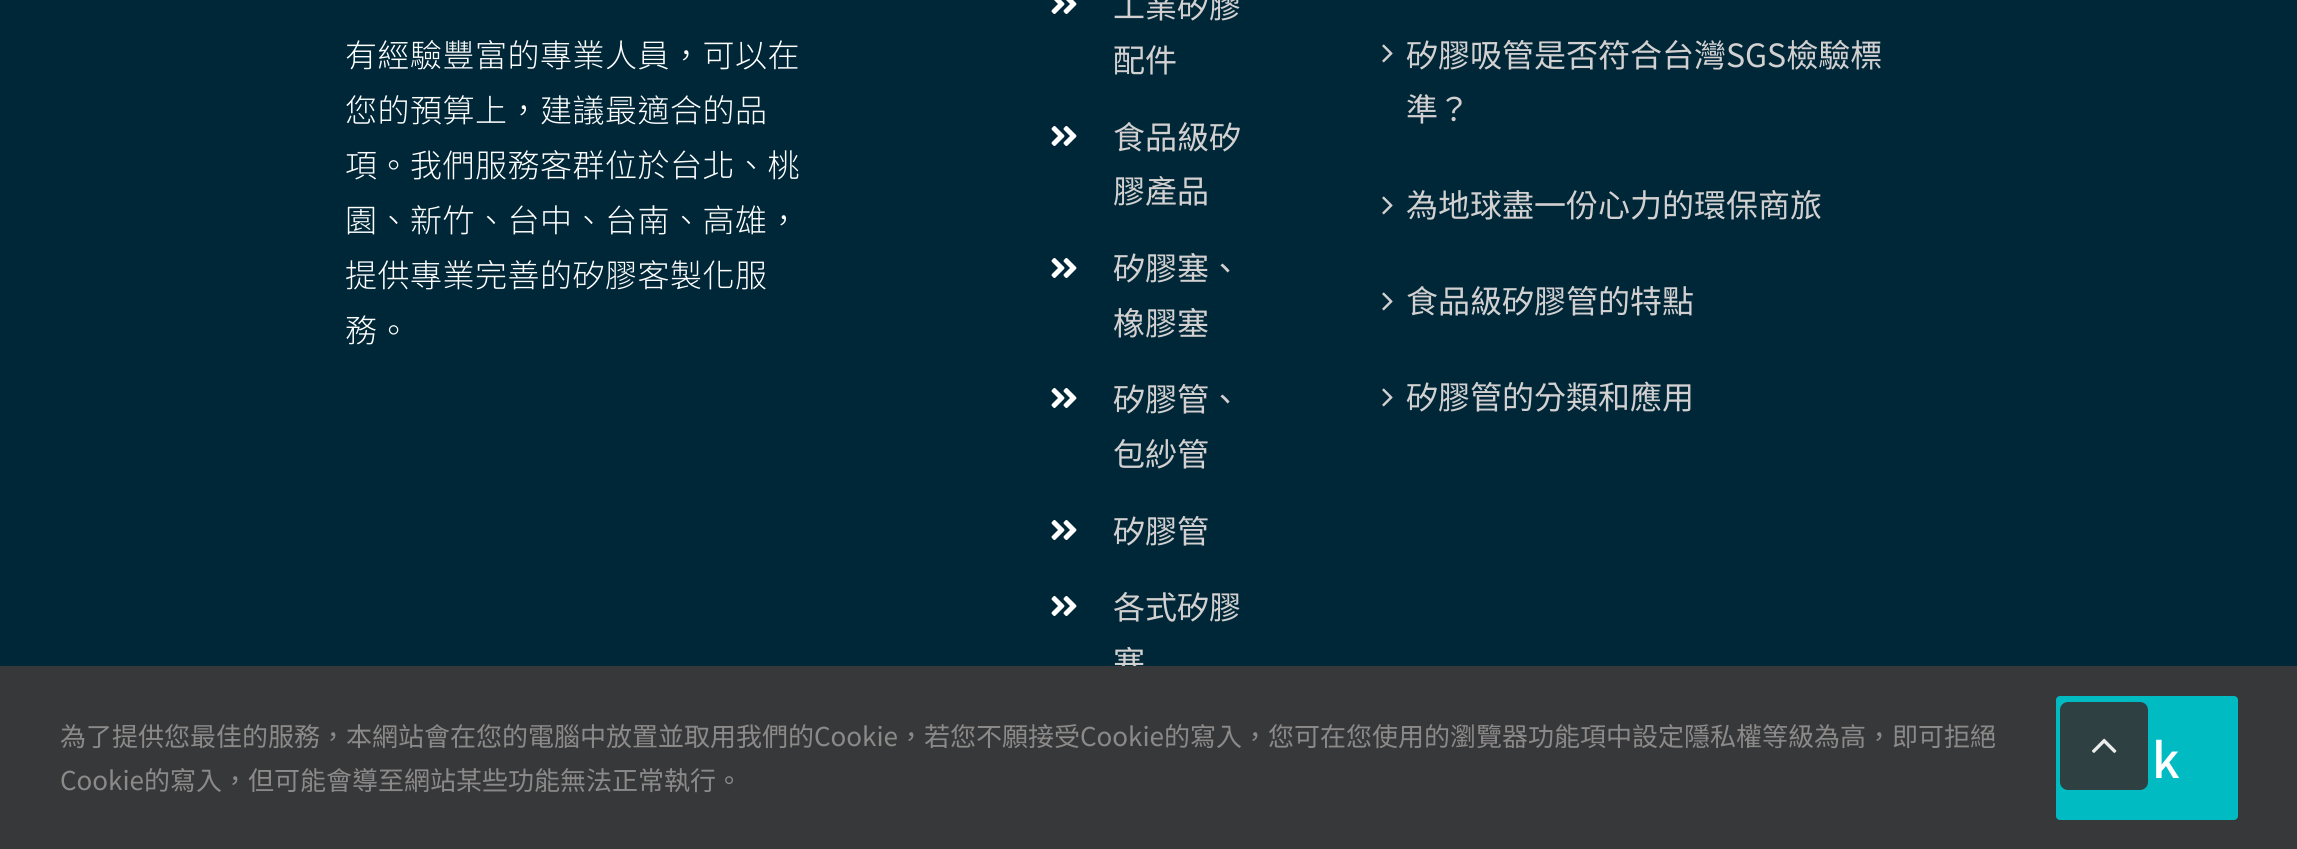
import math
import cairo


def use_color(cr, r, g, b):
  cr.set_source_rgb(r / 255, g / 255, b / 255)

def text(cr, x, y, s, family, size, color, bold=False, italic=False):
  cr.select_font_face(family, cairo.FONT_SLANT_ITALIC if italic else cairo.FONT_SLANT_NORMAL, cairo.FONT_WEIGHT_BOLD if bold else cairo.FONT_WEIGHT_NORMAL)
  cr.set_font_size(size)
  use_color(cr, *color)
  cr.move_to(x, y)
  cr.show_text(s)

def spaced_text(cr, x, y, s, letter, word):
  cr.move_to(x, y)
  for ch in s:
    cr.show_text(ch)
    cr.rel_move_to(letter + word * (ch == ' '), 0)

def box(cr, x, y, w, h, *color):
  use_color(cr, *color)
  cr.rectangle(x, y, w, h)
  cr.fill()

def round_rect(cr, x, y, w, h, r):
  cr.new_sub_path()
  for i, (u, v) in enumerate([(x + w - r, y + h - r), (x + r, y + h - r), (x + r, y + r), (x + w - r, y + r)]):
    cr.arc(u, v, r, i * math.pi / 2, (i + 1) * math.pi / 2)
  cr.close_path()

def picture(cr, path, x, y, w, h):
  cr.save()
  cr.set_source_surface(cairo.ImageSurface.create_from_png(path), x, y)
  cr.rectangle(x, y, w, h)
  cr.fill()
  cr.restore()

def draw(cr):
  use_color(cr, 0, 39, 56)
  cr.paint()
  picture(cr, "img_01.png", 1051, 0, 26, 14)
  picture(cr, "img_02.png", 1051, 126, 26, 20)
  picture(cr, "img_02.png", 1051, 258, 26, 20)
  picture(cr, "img_02.png", 1051, 388, 26, 20)
  picture(cr, "img_02.png", 1051, 520, 26, 20)
  picture(cr, "img_02.png", 1051, 596, 26, 20)
  picture(cr, "img_03.png", 1382, 44, 11, 19)
  picture(cr, "img_03.png", 1382, 196, 11, 19)
  picture(cr, "img_03.png", 1382, 292, 11, 19)
  picture(cr, "img_03.png", 1382, 388, 11, 19)
  cr.select_font_face("Noto Sans TC Light")
  cr.set_font_size(32)
  use_color(cr, 255, 255, 255)
  spaced_text(cr, 345, 67, "有經驗豐富的專業人員，可以在", 0.5, 0)
  spaced_text(cr, 345, 122, "您的預算上，建議最適合的品", 0.5, 0)
  spaced_text(cr, 345, 177, "項。我們服務客群位於台北、桃", 0.5, 0)
  spaced_text(cr, 345, 232, "園、新竹、台中、台南、高雄，", 0.5, 0)
  spaced_text(cr, 345, 287, "提供專業完善的矽膠客製化服", 0.5, 0)
  spaced_text(cr, 345, 342, "務。", 0.5, 0)
  text(cr, 1113, 18, "工業矽膠", "Noto Sans TC", 32, (210, 208, 208))
  text(cr, 1113, 72, "配件", "Noto Sans TC", 32, (210, 208, 208))
  text(cr, 1113, 149, "食品級矽", "Noto Sans TC", 32, (210, 208, 208))
  text(cr, 1113, 203, "膠產品", "Noto Sans TC", 32, (210, 208, 208))
  text(cr, 1113, 280, "矽膠塞、", "Noto Sans TC", 32, (210, 208, 208))
  text(cr, 1113, 335, "橡膠塞", "Noto Sans TC", 32, (210, 208, 208))
  text(cr, 1113, 411, "矽膠管、", "Noto Sans TC", 32, (210, 208, 208))
  text(cr, 1113, 466, "包紗管", "Noto Sans TC", 32, (210, 208, 208))
  text(cr, 1113, 543, "矽膠管", "Noto Sans TC", 32, (210, 208, 208))
  text(cr, 1113, 619, "各式矽膠", "Noto Sans TC", 32, (210, 208, 208))
  text(cr, 1113, 674, "塞", "Noto Sans TC", 32, (210, 208, 208))
  text(cr, 1406, 67, "矽膠吸管是否符合台灣SGS檢驗標", "Noto Sans TC", 32, (210, 208, 208))
  text(cr, 1406, 121, "準？", "Noto Sans TC", 32, (210, 208, 208))
  text(cr, 1406, 217, "為地球盡一份心力的環保商旅", "Noto Sans TC", 32, (210, 208, 208))
  text(cr, 1406, 313, "食品級矽膠管的特點", "Noto Sans TC", 32, (210, 208, 208))
  text(cr, 1406, 409, "矽膠管的分類和應用", "Noto Sans TC", 32, (210, 208, 208))
  box(cr, 0, 666, 2297, 183, 54, 56, 57)
  text(cr, 60, 746, "為了提供您最佳的服務，本網站會在您的電腦中放置並取用我們的Cookie，若您不願接受Cookie的寫入，您可在您使用的瀏覽器功能項中設定隱私權等級為高，即可拒絕", "Noto Sans TC", 26, (140, 137, 137))
  text(cr, 60, 790, "Cookie的寫入，但可能會導至網站某些功能無法正常執行。", "Noto Sans TC", 26, (140, 137, 137))
  use_color(cr, 0, 187, 193)
  round_rect(cr, 2056, 696, 182, 124, 4)
  cr.fill()
  cr.set_source_rgba(0.2, 0.2, 0.2, 0.9)
  round_rect(cr, 2060, 702, 88, 88, 8)
  cr.fill()
  picture(cr, "img_04.png", 2092, 738, 25, 15)
  cr.select_font_face("Noto Sans TC Medium")
  cr.set_font_size(48)
  use_color(cr, 255, 255, 255)
  spaced_text(cr, 2152, 778, "k", 1, 0)


surface = cairo.ImageSurface(cairo.FORMAT_RGB24, 2297, 849)
cr = cairo.Context(surface)
options = cairo.FontOptions()
options.set_hint_metrics(cairo.HINT_METRICS_OFF)
options.set_hint_style(cairo.HINT_STYLE_NONE)
cr.set_font_options(options)
cr.set_miter_limit(4)
draw(cr)
surface.write_to_png("out.png")
